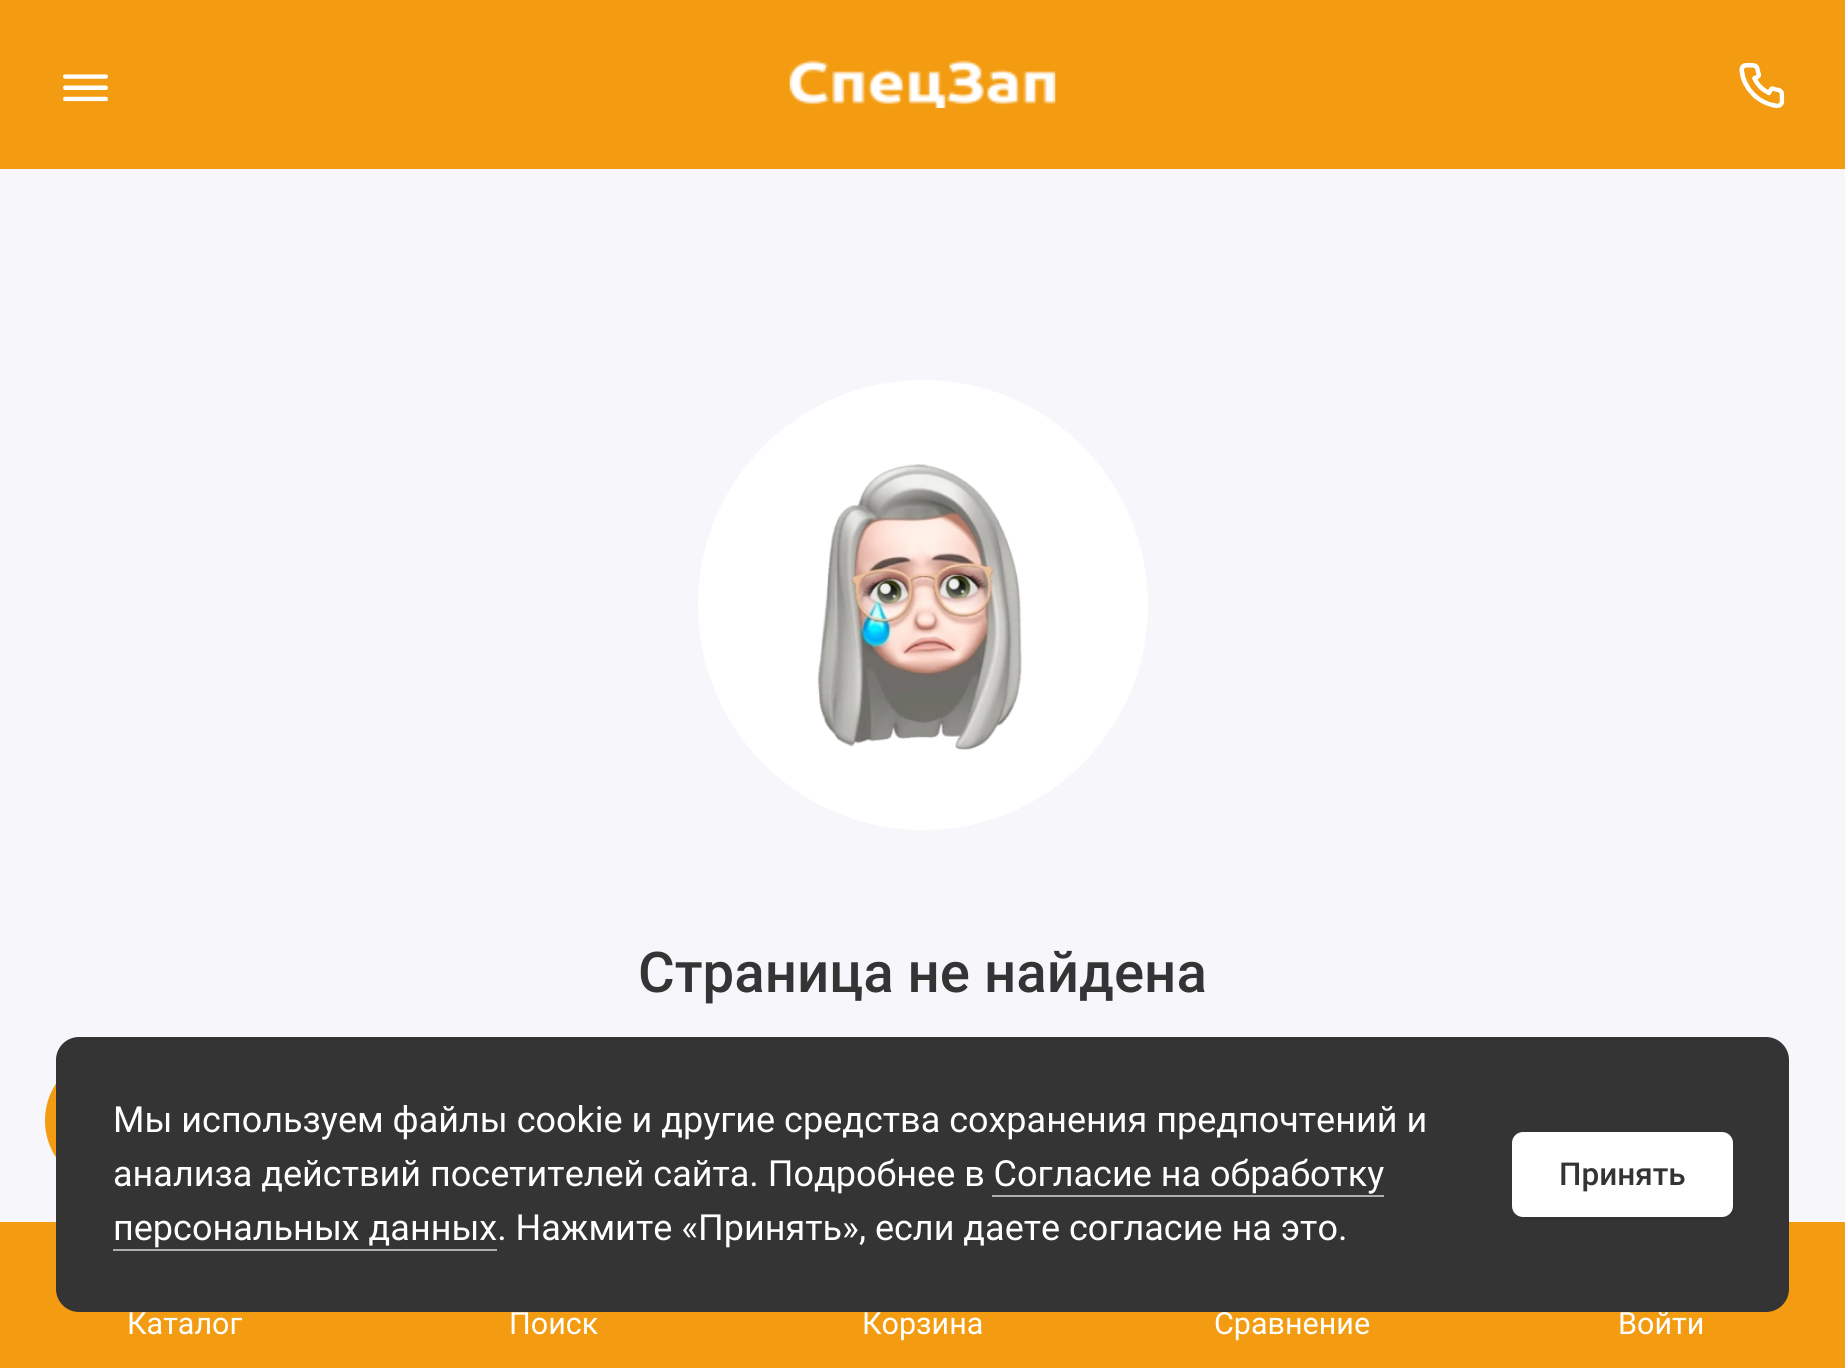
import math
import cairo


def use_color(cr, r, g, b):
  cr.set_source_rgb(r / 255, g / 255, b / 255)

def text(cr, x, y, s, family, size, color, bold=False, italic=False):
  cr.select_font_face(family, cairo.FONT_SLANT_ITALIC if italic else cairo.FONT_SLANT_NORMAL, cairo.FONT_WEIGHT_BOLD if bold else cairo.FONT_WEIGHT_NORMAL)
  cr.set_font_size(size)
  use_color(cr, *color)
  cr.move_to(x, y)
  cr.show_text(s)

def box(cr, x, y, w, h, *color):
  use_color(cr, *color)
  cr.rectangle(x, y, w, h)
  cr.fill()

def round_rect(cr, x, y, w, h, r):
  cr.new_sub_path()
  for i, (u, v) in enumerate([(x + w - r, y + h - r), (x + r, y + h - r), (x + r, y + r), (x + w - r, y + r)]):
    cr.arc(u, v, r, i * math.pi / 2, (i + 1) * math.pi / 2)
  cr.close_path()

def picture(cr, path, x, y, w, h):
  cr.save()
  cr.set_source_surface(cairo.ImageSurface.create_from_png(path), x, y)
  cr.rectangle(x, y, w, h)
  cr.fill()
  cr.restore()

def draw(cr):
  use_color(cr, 247, 247, 251)
  cr.paint()
  use_color(cr, 255, 255, 255)
  cr.arc(923, 605, 225, 0, 2 * math.pi)
  cr.fill()
  picture(cr, "img_01.png", 817, 464, 205, 286)
  use_color(cr, 243, 156, 18)
  cr.arc(112.5, 1120.5, 67.5, 0, 2 * math.pi)
  cr.fill()
  box(cr, 0, 1222, 1845, 146, 243, 156, 18)
  use_color(cr, 52, 52, 52)
  round_rect(cr, 56, 1037, 1733, 275, 23)
  cr.fill()
  box(cr, 992, 1195, 392, 2, 174, 174, 174)
  box(cr, 113, 1249, 384, 2, 174, 174, 174)
  use_color(cr, 255, 255, 255)
  round_rect(cr, 1512, 1132, 221, 85, 11)
  cr.fill()
  box(cr, 0, 0, 1845, 169, 243, 156, 18)
  picture(cr, "img_02.png", 63, 74, 45, 28)
  picture(cr, "img_03.png", 789, 60, 267, 48)
  picture(cr, "img_04.png", 1739, 63, 46, 45)
  text(cr, 638, 992, "Страница не найдена", "Roboto Medium", 56.25, (52, 52, 52))
  text(cr, 113, 1132, "Мы используем файлы cookie и другие средства сохранения предпочтений и", "Roboto", 36, (255, 255, 255))
  text(cr, 113, 1186, "анализа действий посетителей сайта. Подробнее в Согласие на обработку", "Roboto", 36, (255, 255, 255))
  text(cr, 113, 1240, "персональных данных. Нажмите «Принять», если даете согласие на это.", "Roboto", 36, (255, 255, 255))
  text(cr, 1559, 1185, "Принять", "Roboto Medium", 31.5, (52, 52, 52))
  text(cr, 127, 1334, "Каталог", "Roboto", 30.5, (255, 255, 255))
  text(cr, 509, 1334, "Поиск", "Roboto", 30.5, (255, 255, 255))
  text(cr, 862, 1334, "Корзина", "Roboto", 30.5, (255, 255, 255))
  text(cr, 1214, 1334, "Сравнение", "Roboto", 30.5, (255, 255, 255))
  text(cr, 1618, 1334, "Войти", "Roboto", 30.5, (255, 255, 255))


surface = cairo.ImageSurface(cairo.FORMAT_RGB24, 1845, 1368)
cr = cairo.Context(surface)
options = cairo.FontOptions()
options.set_hint_metrics(cairo.HINT_METRICS_OFF)
options.set_hint_style(cairo.HINT_STYLE_NONE)
cr.set_font_options(options)
cr.set_miter_limit(4)
draw(cr)
surface.write_to_png("out.png")
